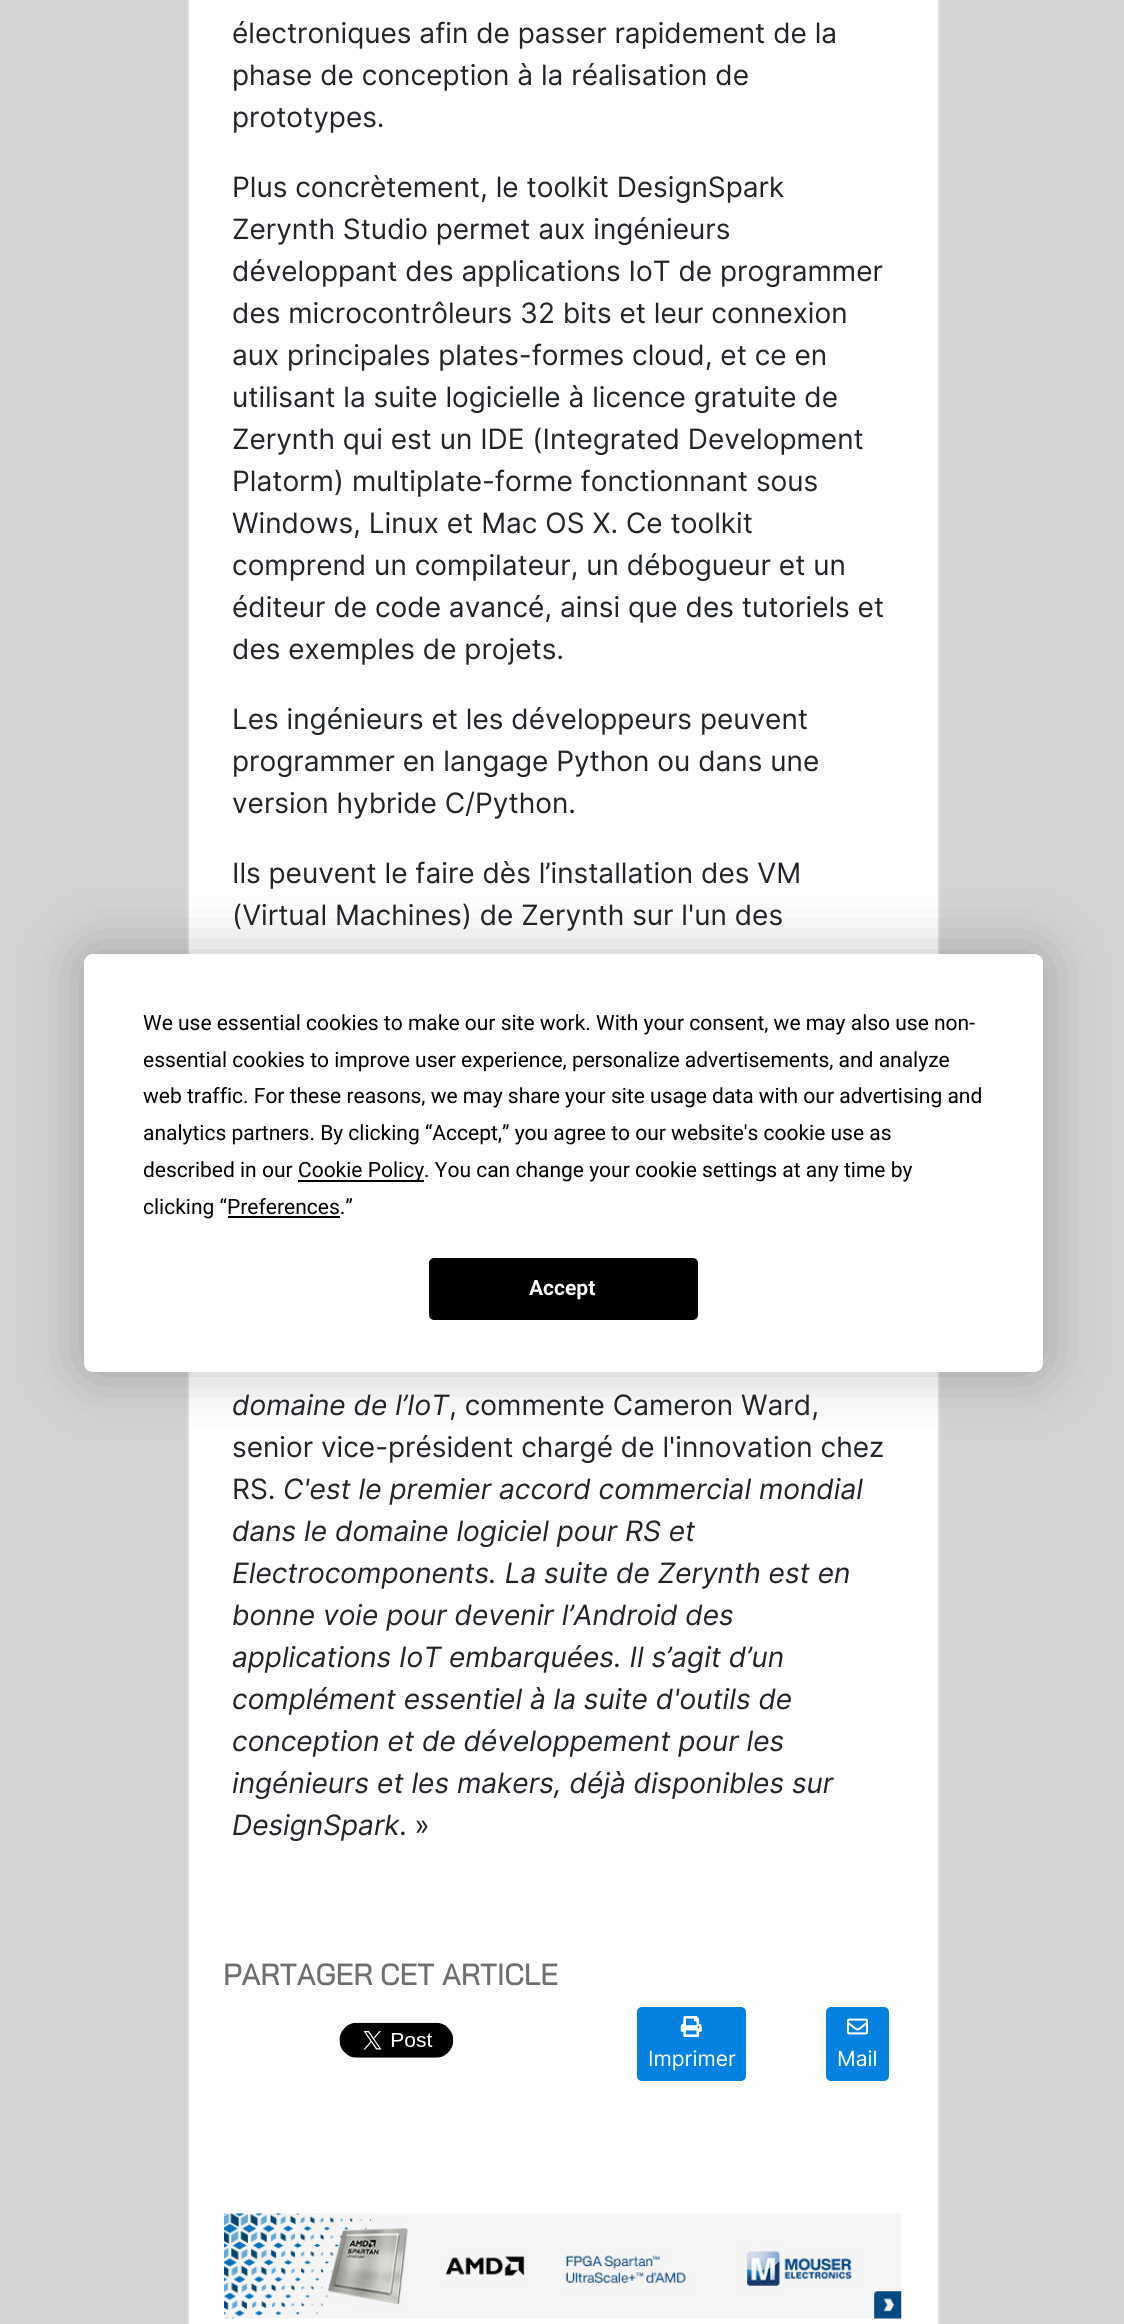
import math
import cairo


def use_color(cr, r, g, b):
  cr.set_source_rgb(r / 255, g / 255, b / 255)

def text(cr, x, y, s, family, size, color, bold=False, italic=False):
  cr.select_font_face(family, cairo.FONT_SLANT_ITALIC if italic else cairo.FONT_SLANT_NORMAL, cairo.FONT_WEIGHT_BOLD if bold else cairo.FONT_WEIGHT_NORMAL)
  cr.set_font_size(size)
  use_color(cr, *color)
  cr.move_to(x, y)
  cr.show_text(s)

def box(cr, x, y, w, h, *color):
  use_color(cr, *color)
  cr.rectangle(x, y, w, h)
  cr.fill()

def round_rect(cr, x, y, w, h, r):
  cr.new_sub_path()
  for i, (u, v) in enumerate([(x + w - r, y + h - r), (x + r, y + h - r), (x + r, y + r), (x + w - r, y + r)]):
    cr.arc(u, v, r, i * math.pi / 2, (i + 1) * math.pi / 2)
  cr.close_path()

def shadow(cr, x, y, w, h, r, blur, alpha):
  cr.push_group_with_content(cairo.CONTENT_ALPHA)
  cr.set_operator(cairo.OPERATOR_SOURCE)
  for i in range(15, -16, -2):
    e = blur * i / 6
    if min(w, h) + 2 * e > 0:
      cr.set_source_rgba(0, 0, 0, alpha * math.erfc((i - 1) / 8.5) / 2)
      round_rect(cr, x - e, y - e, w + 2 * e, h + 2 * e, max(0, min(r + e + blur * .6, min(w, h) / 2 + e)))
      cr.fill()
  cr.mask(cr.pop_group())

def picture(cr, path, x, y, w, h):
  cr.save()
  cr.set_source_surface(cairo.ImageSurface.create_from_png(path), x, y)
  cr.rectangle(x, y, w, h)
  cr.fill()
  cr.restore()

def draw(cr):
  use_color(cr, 211, 211, 211)
  cr.paint()
  use_color(cr, 255, 255, 255)
  cr.rectangle(188, -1, 751, 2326)
  cr.fill_preserve()
  use_color(cr, 223, 223, 223)
  cr.stroke()
  picture(cr, "img_01.png", 339, 2022, 115, 36)
  use_color(cr, 4, 129, 225)
  round_rect(cr, 637, 2007, 109, 74, 5)
  cr.fill()
  picture(cr, "img_02.png", 680, 2016, 22, 21)
  round_rect(cr, 826, 2007, 63, 74, 5)
  cr.fill()
  picture(cr, "img_03.png", 847, 2018, 21, 17)
  picture(cr, "img_04.png", 224, 2213, 678, 106)
  use_color(cr, 0, 0, 0)
  shadow(cr, 84, 954, 959, 418, 9, 30.5, 0.25)
  use_color(cr, 255, 255, 255)
  round_rect(cr, 84, 954, 959, 418, 9)
  cr.fill()
  box(cr, 298, 1180, 126, 2, 0, 0, 0)
  box(cr, 228, 1216, 112, 2, 0, 0, 0)
  round_rect(cr, 430, 1259, 267, 60, 4)
  cr.fill_preserve()
  cr.stroke()
  text(cr, 232, 43, "électroniques afin de passer rapidement de la", "Inter", 28, (33, 37, 41))
  text(cr, 232, 85, "phase de conception à la réalisation de", "Inter", 28, (33, 37, 41))
  text(cr, 232, 127, "prototypes.", "Inter", 28, (33, 37, 41))
  text(cr, 232, 197, "Plus concrètement, le toolkit DesignSpark", "Inter", 28, (33, 37, 41))
  text(cr, 232, 239, "Zerynth Studio permet aux ingénieurs", "Inter", 28, (33, 37, 41))
  text(cr, 232, 281, "développant des applications IoT de programmer", "Inter", 28, (33, 37, 41))
  text(cr, 232, 323, "des microcontrôleurs 32 bits et leur connexion", "Inter", 28, (33, 37, 41))
  text(cr, 232, 365, "aux principales plates-formes cloud, et ce en", "Inter", 28, (33, 37, 41))
  text(cr, 232, 407, "utilisant la suite logicielle à licence gratuite de", "Inter", 28, (33, 37, 41))
  text(cr, 232, 449, "Zerynth qui est un IDE (Integrated Development", "Inter", 28, (33, 37, 41))
  text(cr, 232, 491, "Platorm) multiplate-forme fonctionnant sous", "Inter", 28, (33, 37, 41))
  text(cr, 232, 533, "Windows, Linux et Mac OS X. Ce toolkit", "Inter", 28, (33, 37, 41))
  text(cr, 232, 575, "comprend un compilateur, un débogueur et un", "Inter", 28, (33, 37, 41))
  text(cr, 232, 617, "éditeur de code avancé, ainsi que des tutoriels et", "Inter", 28, (33, 37, 41))
  text(cr, 232, 659, "des exemples de projets.", "Inter", 28, (33, 37, 41))
  text(cr, 232, 729, "Les ingénieurs et les développeurs peuvent", "Inter", 28, (33, 37, 41))
  text(cr, 232, 771, "programmer en langage Python ou dans une", "Inter", 28, (33, 37, 41))
  text(cr, 232, 813, "version hybride C/Python.", "Inter", 28, (33, 37, 41))
  text(cr, 232, 883, "Ils peuvent le faire dès l’installation des VM", "Inter", 28, (33, 37, 41))
  text(cr, 232, 925, "(Virtual Machines) de Zerynth sur l'un des", "Inter", 28, (33, 37, 41))
  text(cr, 232, 1415, "domaine de l’IoT", "Inter", 28, (33, 37, 41), italic=True)
  text(cr, 449, 1415, ", commente Cameron Ward,", "Inter", 28, (33, 37, 41))
  text(cr, 232, 1457, "senior vice-président chargé de l'innovation chez", "Inter", 28, (33, 37, 41))
  text(cr, 232, 1499, "RS.", "Inter", 28, (33, 37, 41))
  text(cr, 283, 1499, "C'est le premier accord commercial mondial", "Inter", 28, (33, 37, 41), italic=True)
  text(cr, 232, 1541, "dans le domaine logiciel pour RS et", "Inter", 28, (33, 37, 41), italic=True)
  text(cr, 232, 1583, "Electrocomponents. La suite de Zerynth est en", "Inter", 28, (33, 37, 41), italic=True)
  text(cr, 232, 1625, "bonne voie pour devenir l’Android des", "Inter", 28, (33, 37, 41), italic=True)
  text(cr, 232, 1667, "applications IoT embarquées. Il s’agit d’un", "Inter", 28, (33, 37, 41), italic=True)
  text(cr, 232, 1709, "complément essentiel à la suite d'outils de", "Inter", 28, (33, 37, 41), italic=True)
  text(cr, 232, 1751, "conception et de développement pour les", "Inter", 28, (33, 37, 41), italic=True)
  text(cr, 232, 1793, "ingénieurs et les makers, déjà disponibles sur", "Inter", 28, (33, 37, 41), italic=True)
  text(cr, 232, 1835, "DesignSpark", "Inter", 28, (33, 37, 41), italic=True)
  text(cr, 399, 1835, ". »", "Inter", 28, (33, 37, 41))
  text(cr, 223, 1985, "PARTAGER CET ARTICLE", "Bai Jamjuree", 29.4, (111, 111, 111), bold=True)
  text(cr, 648, 2066, "Imprimer", "Inter", 21, (255, 255, 255))
  text(cr, 837, 2066, "Mail", "Inter", 21, (255, 255, 255))
  text(cr, 143, 1030, "We use essential cookies to make our site work. With your consent, we may also use non-", "Roboto", 21, (0, 0, 0))
  text(cr, 143, 1067, "essential cookies to improve user experience, personalize advertisements, and analyze", "Roboto", 21, (0, 0, 0))
  text(cr, 143, 1103, "web traffic. For these reasons, we may share your site usage data with our advertising and", "Roboto", 21, (0, 0, 0))
  text(cr, 143, 1140, "analytics partners. By clicking “Accept,” you agree to our website's cookie use as", "Roboto", 21, (0, 0, 0))
  text(cr, 143, 1177, "described in our", "Roboto", 21, (0, 0, 0))
  text(cr, 298, 1177, "Cookie Policy. You can change your cookie settings at any time by", "Roboto", 21, (0, 0, 0))
  text(cr, 143, 1214, "clicking “Preferences.”", "Roboto", 21, (0, 0, 0))
  text(cr, 529, 1295, "Accept", "Roboto", 21, (255, 255, 255), bold=True)


surface = cairo.ImageSurface(cairo.FORMAT_RGB24, 1124, 2324)
cr = cairo.Context(surface)
options = cairo.FontOptions()
options.set_hint_metrics(cairo.HINT_METRICS_OFF)
options.set_hint_style(cairo.HINT_STYLE_NONE)
cr.set_font_options(options)
cr.set_miter_limit(4)
draw(cr)
surface.write_to_png("out.png")
